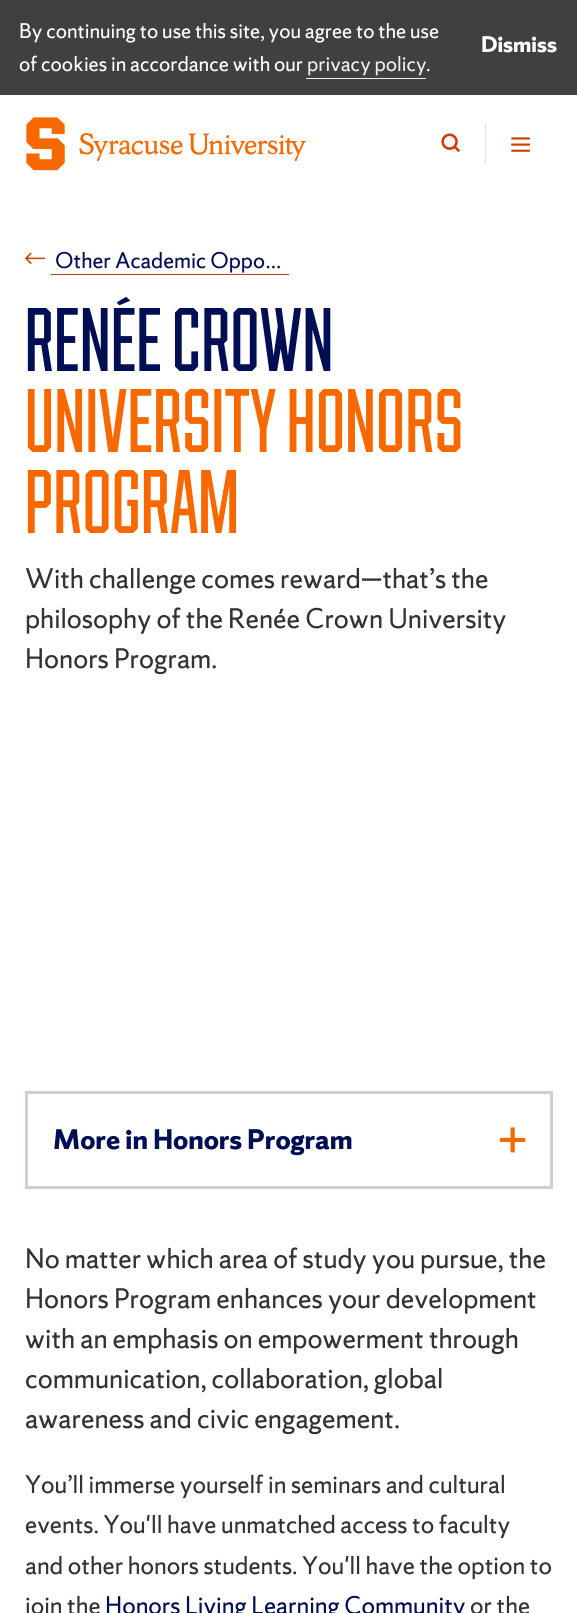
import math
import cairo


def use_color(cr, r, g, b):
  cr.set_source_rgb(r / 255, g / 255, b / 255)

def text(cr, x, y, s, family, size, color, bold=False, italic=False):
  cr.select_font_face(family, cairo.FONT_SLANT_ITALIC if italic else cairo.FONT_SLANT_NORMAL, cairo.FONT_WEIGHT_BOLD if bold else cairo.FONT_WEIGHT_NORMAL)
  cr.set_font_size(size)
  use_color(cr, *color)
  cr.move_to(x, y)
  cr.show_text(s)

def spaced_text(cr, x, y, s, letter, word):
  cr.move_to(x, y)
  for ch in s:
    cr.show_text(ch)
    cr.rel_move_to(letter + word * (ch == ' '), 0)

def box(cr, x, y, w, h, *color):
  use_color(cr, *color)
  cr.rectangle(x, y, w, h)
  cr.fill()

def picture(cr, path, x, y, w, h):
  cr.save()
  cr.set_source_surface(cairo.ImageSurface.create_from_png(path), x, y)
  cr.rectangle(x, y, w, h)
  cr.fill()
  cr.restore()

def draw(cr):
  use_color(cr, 255, 255, 255)
  cr.paint()
  box(cr, 0, 0, 577, 95, 64, 64, 64)
  box(cr, 306, 78, 120, 1, 238, 238, 238)
  picture(cr, "img_01.png", 26, 117, 280, 54)
  picture(cr, "img_02.png", 441, 133, 20, 20)
  box(cr, 485, 124, 1, 41, 228, 228, 228)
  picture(cr, "img_03.png", 511, 137, 19, 15)
  picture(cr, "img_04.png", 25, 252, 20, 12)
  box(cr, 51, 274, 238, 1, 205, 62, 0)
  cr.rectangle(26.5, 1092.5, 525, 95)
  use_color(cr, 204, 207, 221)
  cr.set_line_width(3)
  cr.stroke()
  picture(cr, "img_05.png", 499, 1127, 27, 26)
  text(cr, 19, 38, "By continuing to use this site, you agree to the use", "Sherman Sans", 18.75, (255, 255, 255))
  text(cr, 19, 71, "of cookies in accordance with our", "Sherman Sans", 18.75, (255, 255, 255))
  text(cr, 307, 71, "privacy policy", "Sherman Sans", 18.75, (238, 238, 238))
  text(cr, 426, 71, ".", "Sherman Sans", 18.75, (255, 255, 255))
  text(cr, 481, 52, "Dismiss", "Sherman Sans", 20, (255, 255, 255), bold=True)
  text(cr, 55, 268, "Other Academic Oppo…", "Sherman Sans", 20, (0, 14, 84))
  cr.select_font_face("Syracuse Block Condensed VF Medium")
  cr.set_font_size(90)
  spaced_text(cr, 25, 371, "RENÉE CROWN", 0.6, 0)
  use_color(cr, 247, 105, 0)
  spaced_text(cr, 25, 452, "UNIVERSITY HONORS", 0.6, 0)
  spaced_text(cr, 25, 533, "PROGRAM", 0.6, 0)
  text(cr, 25, 588, "With challenge comes reward—that’s the", "Sherman Sans", 25, (51, 51, 51))
  text(cr, 25, 628, "philosophy of the Renée Crown University", "Sherman Sans", 25, (51, 51, 51))
  text(cr, 25, 668, "Honors Program.", "Sherman Sans", 25, (51, 51, 51))
  text(cr, 53, 1149, "More in Honors Program", "Sherman Sans", 25, (0, 14, 84), bold=True)
  text(cr, 25, 1268, "No matter which area of study you pursue, the", "Sherman Sans", 25, (51, 51, 51))
  text(cr, 25, 1308, "Honors Program enhances your development", "Sherman Sans", 25, (51, 51, 51))
  text(cr, 25, 1348, "with an emphasis on empowerment through", "Sherman Sans", 25, (51, 51, 51))
  text(cr, 25, 1388, "communication, collaboration, global", "Sherman Sans", 25, (51, 51, 51))
  text(cr, 25, 1428, "awareness and civic engagement.", "Sherman Sans", 25, (51, 51, 51))
  text(cr, 25, 1493, "You’ll immerse yourself in seminars and cultural", "Sherman Sans", 22.5, (51, 51, 51))
  text(cr, 25, 1533, "events. You'll have unmatched access to faculty", "Sherman Sans", 22.5, (51, 51, 51))
  text(cr, 25, 1574, "and other honors students. You'll have the option to", "Sherman Sans", 22.5, (51, 51, 51))
  text(cr, 25, 1614, "join the", "Sherman Sans", 22.5, (51, 51, 51))
  text(cr, 105, 1614, "Honors Living Learning Community", "Sherman Sans", 22.5, (0, 14, 84))
  text(cr, 470, 1614, "or the", "Sherman Sans", 22.5, (51, 51, 51))


surface = cairo.ImageSurface(cairo.FORMAT_RGB24, 577, 1613)
cr = cairo.Context(surface)
options = cairo.FontOptions()
options.set_hint_metrics(cairo.HINT_METRICS_OFF)
options.set_hint_style(cairo.HINT_STYLE_NONE)
cr.set_font_options(options)
cr.set_miter_limit(4)
draw(cr)
surface.write_to_png("out.png")
